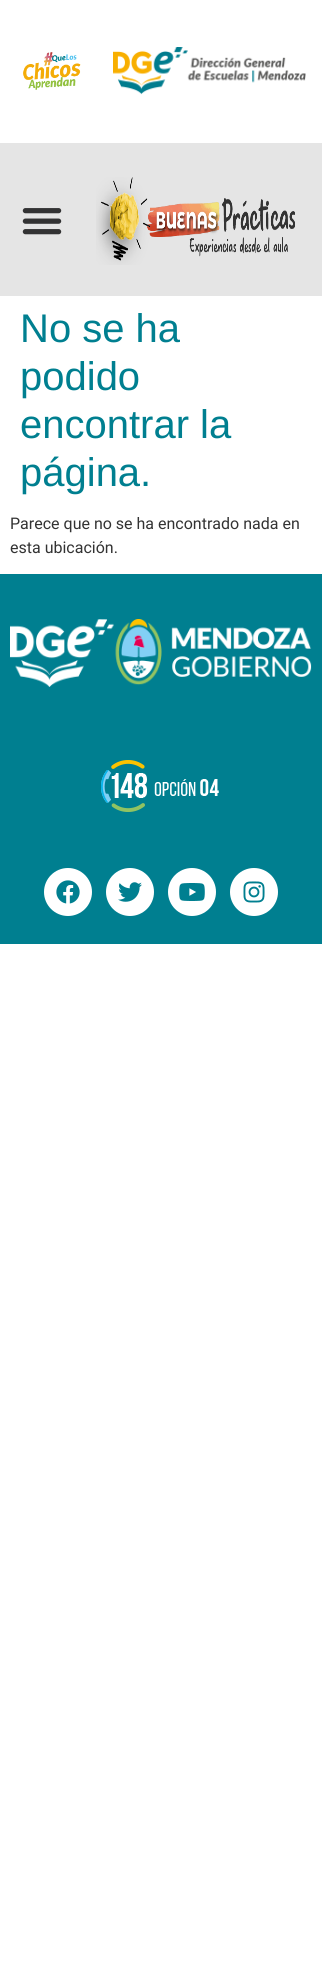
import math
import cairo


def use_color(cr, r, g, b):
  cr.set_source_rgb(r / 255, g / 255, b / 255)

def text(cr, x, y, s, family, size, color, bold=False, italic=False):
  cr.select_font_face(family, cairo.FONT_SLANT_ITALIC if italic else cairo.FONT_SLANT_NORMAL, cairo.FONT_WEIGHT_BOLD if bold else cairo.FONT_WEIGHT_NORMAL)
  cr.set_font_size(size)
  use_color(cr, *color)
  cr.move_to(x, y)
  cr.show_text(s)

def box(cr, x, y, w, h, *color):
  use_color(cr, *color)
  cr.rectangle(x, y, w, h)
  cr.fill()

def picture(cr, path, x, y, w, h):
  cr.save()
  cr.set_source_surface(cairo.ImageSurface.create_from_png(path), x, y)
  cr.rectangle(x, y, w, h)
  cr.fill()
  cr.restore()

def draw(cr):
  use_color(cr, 255, 255, 255)
  cr.paint()
  picture(cr, "img_01.png", 23, 52, 58, 38)
  picture(cr, "img_02.png", 113, 47, 193, 48)
  box(cr, 0, 143, 322, 153, 229, 229, 229)
  picture(cr, "img_03.png", 22, 208, 40, 27)
  picture(cr, "img_04.png", 96, 177, 199, 88)
  box(cr, 0, 574, 322, 370, 0, 127, 144)
  picture(cr, "img_05.png", 10, 619, 302, 68)
  picture(cr, "img_06.png", 101, 760, 118, 52)
  use_color(cr, 255, 255, 255)
  cr.arc(68, 892, 24, 0, 2 * math.pi)
  cr.fill()
  picture(cr, "img_07.png", 56, 880, 24, 24)
  cr.arc(130, 892, 24, 0, 2 * math.pi)
  cr.fill()
  picture(cr, "img_08.png", 118, 882, 24, 20)
  cr.arc(192, 892, 24, 0, 2 * math.pi)
  cr.fill()
  picture(cr, "img_09.png", 179, 883, 26, 18)
  cr.arc(254, 892, 24, 0, 2 * math.pi)
  cr.fill()
  picture(cr, "img_10.png", 243, 881, 22, 22)
  text(cr, 20, 342, "No se ha", "Liberation Sans", 40, (0, 127, 144))
  text(cr, 20, 390, "podido", "Liberation Sans", 40, (0, 127, 144))
  text(cr, 20, 438, "encontrar la", "Liberation Sans", 40, (0, 127, 144))
  text(cr, 20, 486, "página.", "Liberation Sans", 40, (0, 127, 144))
  text(cr, 10, 529, "Parece que no se ha encontrado nada en", "Roboto", 16, (51, 51, 51))
  text(cr, 10, 553, "esta ubicación.", "Roboto", 16, (51, 51, 51))


surface = cairo.ImageSurface(cairo.FORMAT_RGB24, 322, 1965)
cr = cairo.Context(surface)
options = cairo.FontOptions()
options.set_hint_metrics(cairo.HINT_METRICS_OFF)
options.set_hint_style(cairo.HINT_STYLE_NONE)
cr.set_font_options(options)
cr.set_miter_limit(4)
draw(cr)
surface.write_to_png("out.png")
